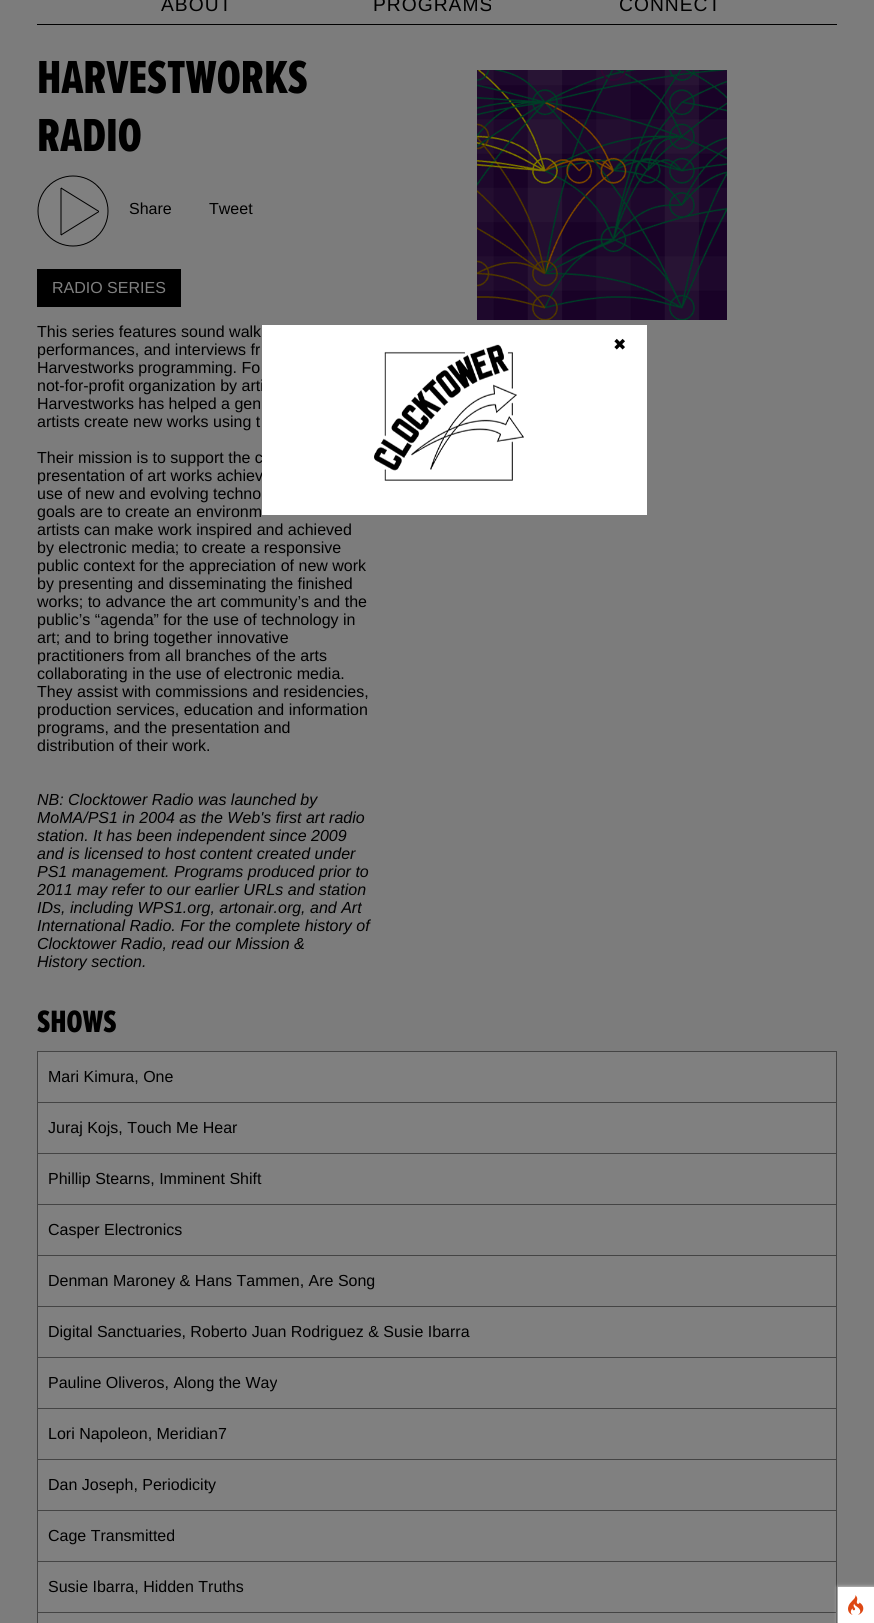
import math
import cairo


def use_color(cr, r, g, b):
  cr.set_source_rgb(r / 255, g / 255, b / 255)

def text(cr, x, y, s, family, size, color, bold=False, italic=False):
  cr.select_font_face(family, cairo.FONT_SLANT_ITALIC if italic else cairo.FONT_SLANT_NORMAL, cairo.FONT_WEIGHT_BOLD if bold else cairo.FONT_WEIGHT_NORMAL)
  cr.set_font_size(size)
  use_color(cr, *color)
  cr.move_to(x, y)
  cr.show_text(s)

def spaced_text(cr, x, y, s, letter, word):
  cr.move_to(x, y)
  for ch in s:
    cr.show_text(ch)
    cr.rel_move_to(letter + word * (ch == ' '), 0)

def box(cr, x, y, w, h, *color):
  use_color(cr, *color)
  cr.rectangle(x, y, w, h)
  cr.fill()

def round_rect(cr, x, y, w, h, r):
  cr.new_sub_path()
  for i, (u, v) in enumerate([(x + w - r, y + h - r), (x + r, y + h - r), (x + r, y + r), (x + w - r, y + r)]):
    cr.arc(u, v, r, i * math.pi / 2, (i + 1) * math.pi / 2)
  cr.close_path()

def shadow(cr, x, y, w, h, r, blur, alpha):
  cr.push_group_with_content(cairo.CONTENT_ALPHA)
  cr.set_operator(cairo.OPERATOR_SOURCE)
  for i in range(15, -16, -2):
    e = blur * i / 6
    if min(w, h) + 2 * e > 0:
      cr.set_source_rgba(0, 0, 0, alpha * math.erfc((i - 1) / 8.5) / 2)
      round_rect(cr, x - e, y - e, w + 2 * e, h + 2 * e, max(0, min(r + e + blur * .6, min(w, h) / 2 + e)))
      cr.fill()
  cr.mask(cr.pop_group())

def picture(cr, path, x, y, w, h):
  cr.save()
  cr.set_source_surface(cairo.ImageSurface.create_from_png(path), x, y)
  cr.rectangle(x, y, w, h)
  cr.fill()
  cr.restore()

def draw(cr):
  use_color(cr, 124, 124, 124)
  cr.paint()
  box(cr, 37, 24, 800, 1, 0, 0, 0)
  picture(cr, "img_01.png", 37, 175, 72, 72)
  box(cr, 37, 269, 144, 38, 0, 0, 0)
  picture(cr, "img_02.png", 477, 70, 250, 250)
  use_color(cr, 128, 128, 128)
  cr.rectangle(37.5, 1051.5, 799, 51)
  cr.fill_preserve()
  use_color(cr, 68, 68, 68)
  cr.set_line_width(1)
  cr.stroke()
  use_color(cr, 128, 128, 128)
  cr.rectangle(37.5, 1102.5, 799, 51)
  cr.fill_preserve()
  use_color(cr, 68, 68, 68)
  cr.stroke()
  use_color(cr, 128, 128, 128)
  cr.rectangle(37.5, 1153.5, 799, 51)
  cr.fill_preserve()
  use_color(cr, 68, 68, 68)
  cr.stroke()
  use_color(cr, 128, 128, 128)
  cr.rectangle(37.5, 1204.5, 799, 51)
  cr.fill_preserve()
  use_color(cr, 68, 68, 68)
  cr.stroke()
  use_color(cr, 128, 128, 128)
  cr.rectangle(37.5, 1255.5, 799, 51)
  cr.fill_preserve()
  use_color(cr, 68, 68, 68)
  cr.stroke()
  use_color(cr, 128, 128, 128)
  cr.rectangle(37.5, 1306.5, 799, 51)
  cr.fill_preserve()
  use_color(cr, 68, 68, 68)
  cr.stroke()
  use_color(cr, 128, 128, 128)
  cr.rectangle(37.5, 1357.5, 799, 51)
  cr.fill_preserve()
  use_color(cr, 68, 68, 68)
  cr.stroke()
  use_color(cr, 128, 128, 128)
  cr.rectangle(37.5, 1408.5, 799, 51)
  cr.fill_preserve()
  use_color(cr, 68, 68, 68)
  cr.stroke()
  use_color(cr, 128, 128, 128)
  cr.rectangle(37.5, 1459.5, 799, 51)
  cr.fill_preserve()
  use_color(cr, 68, 68, 68)
  cr.stroke()
  use_color(cr, 128, 128, 128)
  cr.rectangle(37.5, 1510.5, 799, 51)
  cr.fill_preserve()
  use_color(cr, 68, 68, 68)
  cr.stroke()
  use_color(cr, 128, 128, 128)
  cr.rectangle(37.5, 1561.5, 799, 51)
  cr.fill_preserve()
  use_color(cr, 68, 68, 68)
  cr.stroke()
  use_color(cr, 128, 128, 128)
  cr.rectangle(37.5, 1612.5, 799, 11)
  cr.fill_preserve()
  use_color(cr, 68, 68, 68)
  cr.stroke()
  use_color(cr, 223, 223, 223)
  shadow(cr, 838, 1587, 36, 36, 0, 2, 1)
  box(cr, 838, 1587, 36, 36, 255, 255, 255)
  picture(cr, "img_04.png", 848, 1595, 16, 20)
  cr.select_font_face("Liberation Sans")
  cr.set_font_size(19.25)
  use_color(cr, 0, 0, 0)
  spaced_text(cr, 161, 11, "ABOUT", 1, 0)
  spaced_text(cr, 373, 11, "PROGRAMS", 1, 0)
  spaced_text(cr, 619, 11, "CONNECT", 1, 0)
  text(cr, 37, 93, "HARVESTWORKS", "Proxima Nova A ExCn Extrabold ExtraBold", 48, (0, 0, 0))
  text(cr, 37, 151, "RADIO", "Proxima Nova A ExCn Extrabold ExtraBold", 48, (0, 0, 0))
  text(cr, 129, 214, "Share", "Liberation Sans", 16, (0, 0, 0))
  text(cr, 209, 214, "Tweet", "Liberation Sans", 16, (0, 0, 0))
  text(cr, 52, 293, "RADIO SERIES", "Liberation Sans", 16, (128, 128, 128))
  text(cr, 37, 337, "This series features sound walk", "Liberation Sans", 16, (0, 0, 0))
  text(cr, 37, 355, "performances, and interviews fr", "Liberation Sans", 16, (0, 0, 0))
  text(cr, 37, 373, "Harvestworks programming. Fo", "Liberation Sans", 16, (0, 0, 0))
  text(cr, 37, 391, "not-for-profit organization by arti", "Liberation Sans", 16, (0, 0, 0))
  text(cr, 37, 409, "Harvestworks has helped a gen", "Liberation Sans", 16, (0, 0, 0))
  text(cr, 37, 427, "artists create new works using t", "Liberation Sans", 16, (0, 0, 0))
  text(cr, 37, 463, "Their mission is to support the c", "Liberation Sans", 16, (0, 0, 0))
  text(cr, 37, 481, "presentation of art works achiev", "Liberation Sans", 16, (0, 0, 0))
  text(cr, 37, 499, "use of new and evolving techno", "Liberation Sans", 16, (0, 0, 0))
  text(cr, 37, 517, "goals are to create an environm", "Liberation Sans", 16, (0, 0, 0))
  text(cr, 37, 535, "artists can make work inspired and achieved", "Liberation Sans", 16, (0, 0, 0))
  text(cr, 37, 553, "by electronic media; to create a responsive", "Liberation Sans", 16, (0, 0, 0))
  text(cr, 37, 571, "public context for the appreciation of new work", "Liberation Sans", 16, (0, 0, 0))
  text(cr, 37, 589, "by presenting and disseminating the finished", "Liberation Sans", 16, (0, 0, 0))
  text(cr, 37, 607, "works; to advance the art community’s and the", "Liberation Sans", 16, (0, 0, 0))
  text(cr, 37, 625, "public’s “agenda” for the use of technology in", "Liberation Sans", 16, (0, 0, 0))
  text(cr, 37, 643, "art; and to bring together innovative", "Liberation Sans", 16, (0, 0, 0))
  text(cr, 37, 661, "practitioners from all branches of the arts", "Liberation Sans", 16, (0, 0, 0))
  text(cr, 37, 679, "collaborating in the use of electronic media.", "Liberation Sans", 16, (0, 0, 0))
  text(cr, 37, 697, "They assist with commissions and residencies,", "Liberation Sans", 16, (0, 0, 0))
  text(cr, 37, 715, "production services, education and information", "Liberation Sans", 16, (0, 0, 0))
  text(cr, 37, 733, "programs, and the presentation and", "Liberation Sans", 16, (0, 0, 0))
  text(cr, 37, 751, "distribution of their work.", "Liberation Sans", 16, (0, 0, 0))
  text(cr, 37, 805, "NB: Clocktower Radio was launched by", "Liberation Sans", 16, (0, 0, 0), italic=True)
  text(cr, 37, 823, "MoMA/PS1 in 2004 as the Web's first art radio", "Liberation Sans", 16, (0, 0, 0), italic=True)
  text(cr, 37, 841, "station. It has been independent since 2009", "Liberation Sans", 16, (0, 0, 0), italic=True)
  text(cr, 37, 859, "and is licensed to host content created under", "Liberation Sans", 16, (0, 0, 0), italic=True)
  text(cr, 37, 877, "PS1 management. Programs produced prior to", "Liberation Sans", 16, (0, 0, 0), italic=True)
  text(cr, 37, 895, "2011 may refer to our earlier URLs and station", "Liberation Sans", 16, (0, 0, 0), italic=True)
  text(cr, 37, 913, "IDs, including WPS1.org, artonair.org, and Art", "Liberation Sans", 16, (0, 0, 0), italic=True)
  text(cr, 37, 931, "International Radio. For the complete history of", "Liberation Sans", 16, (0, 0, 0), italic=True)
  text(cr, 37, 949, "Clocktower Radio, read our Mission &", "Liberation Sans", 16, (0, 0, 0), italic=True)
  text(cr, 37, 967, "History section.", "Liberation Sans", 16, (0, 0, 0), italic=True)
  text(cr, 37, 1032, "SHOWS", "Proxima Nova A ExCn Extrabold ExtraBold", 32, (0, 0, 0))
  text(cr, 48, 1082, "Mari Kimura, One", "Liberation Sans", 16, (0, 0, 0))
  text(cr, 48, 1133, "Juraj Kojs, Touch Me Hear", "Liberation Sans", 16, (0, 0, 0))
  text(cr, 48, 1184, "Phillip Stearns, Imminent Shift", "Liberation Sans", 16, (0, 0, 0))
  text(cr, 48, 1235, "Casper Electronics", "Liberation Sans", 16, (0, 0, 0))
  text(cr, 48, 1286, "Denman Maroney & Hans Tammen, Are Song", "Liberation Sans", 16, (0, 0, 0))
  text(cr, 48, 1337, "Digital Sanctuaries, Roberto Juan Rodriguez & Susie Ibarra", "Liberation Sans", 16, (0, 0, 0))
  text(cr, 48, 1388, "Pauline Oliveros, Along the Way", "Liberation Sans", 16, (0, 0, 0))
  text(cr, 48, 1439, "Lori Napoleon, Meridian7", "Liberation Sans", 16, (0, 0, 0))
  text(cr, 48, 1490, "Dan Joseph, Periodicity", "Liberation Sans", 16, (0, 0, 0))
  text(cr, 48, 1541, "Cage Transmitted", "Liberation Sans", 16, (0, 0, 0))
  text(cr, 48, 1592, "Susie Ibarra, Hidden Truths", "Liberation Sans", 16, (0, 0, 0))
  box(cr, 262, 325, 385, 190, 255, 255, 255)
  picture(cr, "img_03.png", 374, 344, 150, 137)
  text(cr, 613, 350, "✖", "DejaVu Sans", 16, (0, 0, 0))


surface = cairo.ImageSurface(cairo.FORMAT_RGB24, 874, 1623)
cr = cairo.Context(surface)
options = cairo.FontOptions()
options.set_hint_metrics(cairo.HINT_METRICS_OFF)
options.set_hint_style(cairo.HINT_STYLE_NONE)
cr.set_font_options(options)
cr.set_miter_limit(4)
draw(cr)
surface.write_to_png("out.png")
